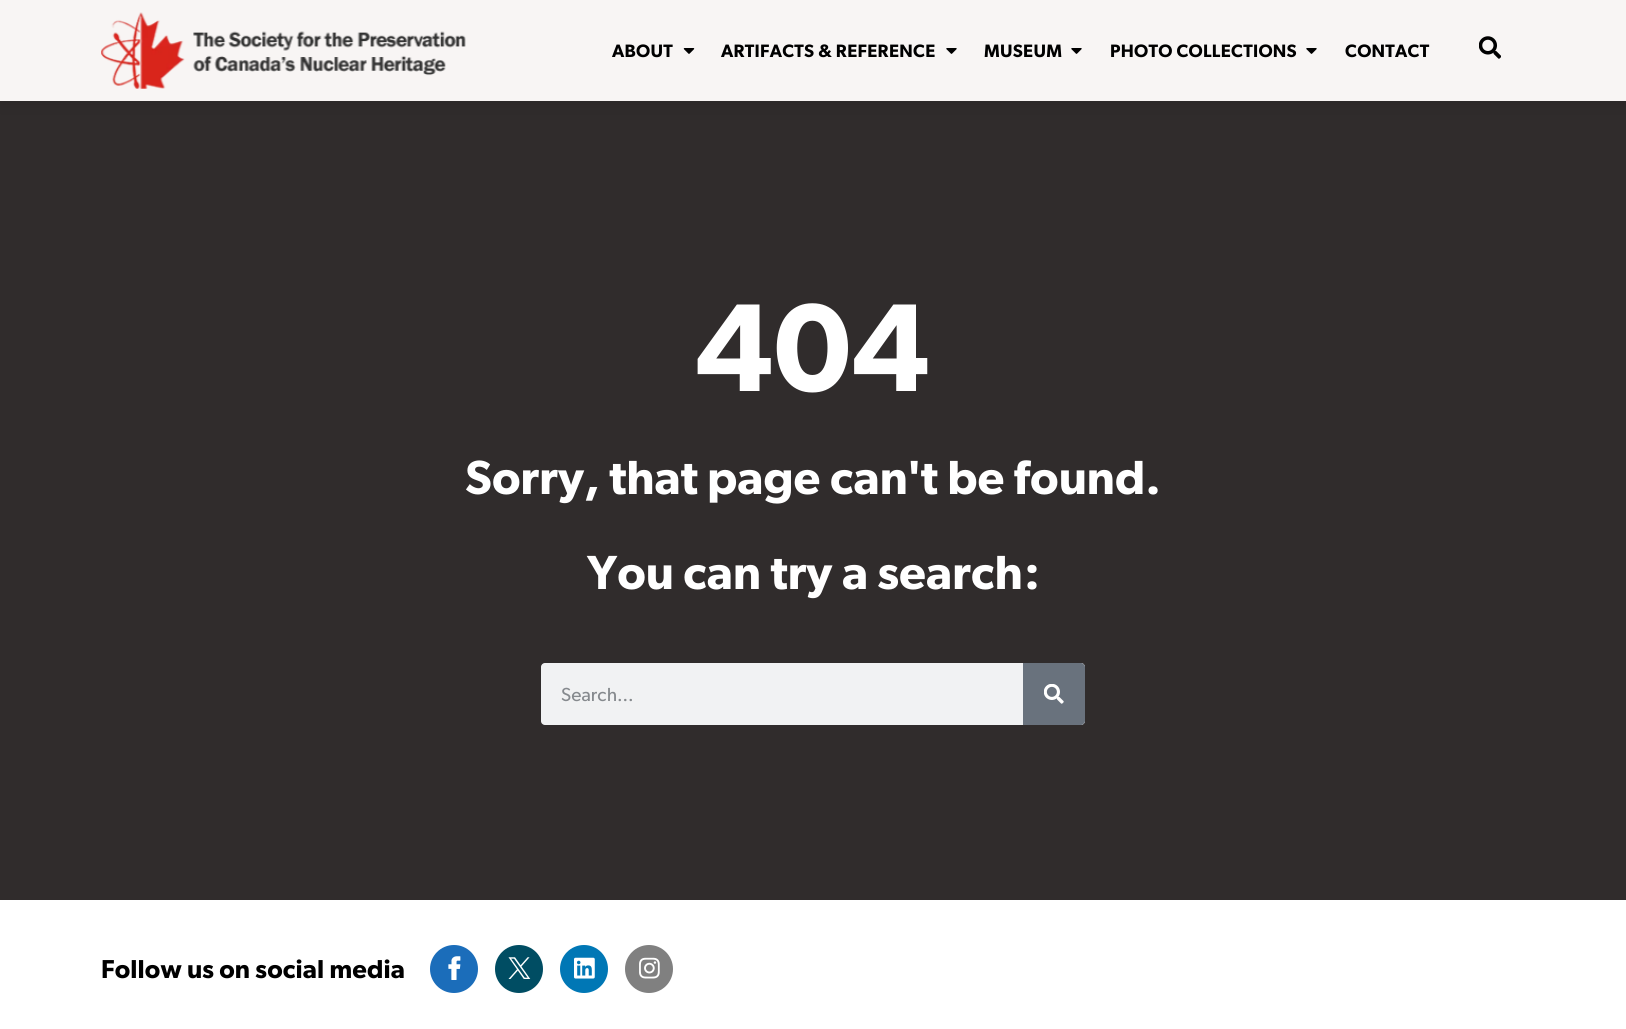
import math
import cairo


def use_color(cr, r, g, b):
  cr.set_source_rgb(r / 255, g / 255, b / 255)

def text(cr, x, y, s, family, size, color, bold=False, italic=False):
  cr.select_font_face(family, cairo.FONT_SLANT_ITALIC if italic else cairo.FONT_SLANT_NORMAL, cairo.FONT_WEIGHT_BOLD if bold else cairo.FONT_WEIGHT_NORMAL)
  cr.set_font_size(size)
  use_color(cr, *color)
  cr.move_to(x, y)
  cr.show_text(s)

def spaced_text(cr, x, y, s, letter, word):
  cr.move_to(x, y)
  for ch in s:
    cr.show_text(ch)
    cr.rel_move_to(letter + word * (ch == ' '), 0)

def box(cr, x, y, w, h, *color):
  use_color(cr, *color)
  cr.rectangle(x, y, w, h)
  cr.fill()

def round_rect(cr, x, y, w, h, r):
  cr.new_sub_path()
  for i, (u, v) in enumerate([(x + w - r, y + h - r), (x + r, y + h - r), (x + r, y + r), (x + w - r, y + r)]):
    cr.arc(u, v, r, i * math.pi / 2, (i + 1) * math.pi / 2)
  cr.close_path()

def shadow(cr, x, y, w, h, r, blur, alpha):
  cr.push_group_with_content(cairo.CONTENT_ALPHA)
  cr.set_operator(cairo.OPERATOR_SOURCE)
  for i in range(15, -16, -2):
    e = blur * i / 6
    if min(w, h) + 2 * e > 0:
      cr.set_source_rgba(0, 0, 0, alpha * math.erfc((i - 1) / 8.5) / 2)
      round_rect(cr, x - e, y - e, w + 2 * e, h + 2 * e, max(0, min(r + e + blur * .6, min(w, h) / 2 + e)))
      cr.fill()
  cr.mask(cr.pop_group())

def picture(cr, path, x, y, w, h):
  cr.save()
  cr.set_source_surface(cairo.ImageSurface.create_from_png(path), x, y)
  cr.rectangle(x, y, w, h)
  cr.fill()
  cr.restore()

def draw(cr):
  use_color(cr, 255, 255, 255)
  cr.paint()
  box(cr, 0, 101, 1626, 799, 48, 44, 44)
  use_color(cr, 0, 0, 0)
  shadow(cr, 0, 3, 1626, 101, 0, 7.5, 0.13)
  box(cr, 0, 0, 1626, 101, 248, 245, 244)
  picture(cr, "img_01.png", 101, 12, 365, 77)
  picture(cr, "img_02.png", 683, 48, 12, 6)
  picture(cr, "img_03.png", 946, 48, 11, 6)
  picture(cr, "img_03.png", 1071, 48, 11, 6)
  picture(cr, "img_03.png", 1306, 48, 11, 6)
  picture(cr, "img_04.png", 1479, 36, 22, 23)
  use_color(cr, 241, 242, 243)
  round_rect(cr, 541, 663, 544, 62, 4)
  cr.fill()
  use_color(cr, 105, 114, 125)
  cr.new_path()
  cr.move_to(1023, 663)
  cr.line_to(1081, 663)
  cr.curve_to(1083, 663, 1085, 665, 1085, 667)
  cr.line_to(1085, 721)
  cr.curve_to(1085, 723, 1083, 725, 1081, 725)
  cr.line_to(1023, 725)
  cr.close_path()
  cr.fill()
  picture(cr, "img_05.png", 1044, 684, 20, 20)
  use_color(cr, 27, 109, 186)
  cr.arc(454, 969, 24, 0, 2 * math.pi)
  cr.fill()
  picture(cr, "img_06.png", 448, 956, 13, 24)
  use_color(cr, 0, 77, 99)
  cr.arc(519, 969, 24, 0, 2 * math.pi)
  cr.fill()
  picture(cr, "img_07.png", 508, 957, 23, 22)
  use_color(cr, 0, 119, 181)
  cr.arc(584, 969, 24, 0, 2 * math.pi)
  cr.fill()
  picture(cr, "img_08.png", 574, 957, 21, 22)
  use_color(cr, 128, 128, 128)
  cr.arc(649, 969, 24, 0, 2 * math.pi)
  cr.fill()
  picture(cr, "img_09.png", 639, 957, 21, 22)
  cr.select_font_face("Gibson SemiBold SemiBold")
  cr.set_font_size(18)
  use_color(cr, 0, 0, 0)
  spaced_text(cr, 612, 57, "ABOUT", 0.25, 0)
  spaced_text(cr, 721, 57, "ARTIFACTS & REFERENCE", 0.25, 0)
  spaced_text(cr, 984, 57, "MUSEUM", 0.25, 0)
  spaced_text(cr, 1110, 57, "PHOTO COLLECTIONS", 0.25, 0)
  spaced_text(cr, 1345, 57, "CONTACT", 0.25, 0)
  text(cr, 695, 391, "404", "Gibson SemiBold SemiBold", 125, (255, 255, 255))
  text(cr, 465, 494, "Sorry, that page can't be found.", "Gibson SemiBold SemiBold", 48, (255, 255, 255))
  text(cr, 587, 589, "You can try a search:", "Gibson SemiBold SemiBold", 48, (255, 255, 255))
  text(cr, 561, 701, "Search...", "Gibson", 19, (134, 138, 142))
  cr.select_font_face("Gibson SemiBold SemiBold")
  cr.set_font_size(26)
  use_color(cr, 0, 0, 0)
  spaced_text(cr, 101, 978, "Follow us on social media", 0.1, 0)


surface = cairo.ImageSurface(cairo.FORMAT_RGB24, 1626, 1029)
cr = cairo.Context(surface)
options = cairo.FontOptions()
options.set_hint_metrics(cairo.HINT_METRICS_OFF)
options.set_hint_style(cairo.HINT_STYLE_NONE)
cr.set_font_options(options)
cr.set_miter_limit(4)
draw(cr)
surface.write_to_png("out.png")
